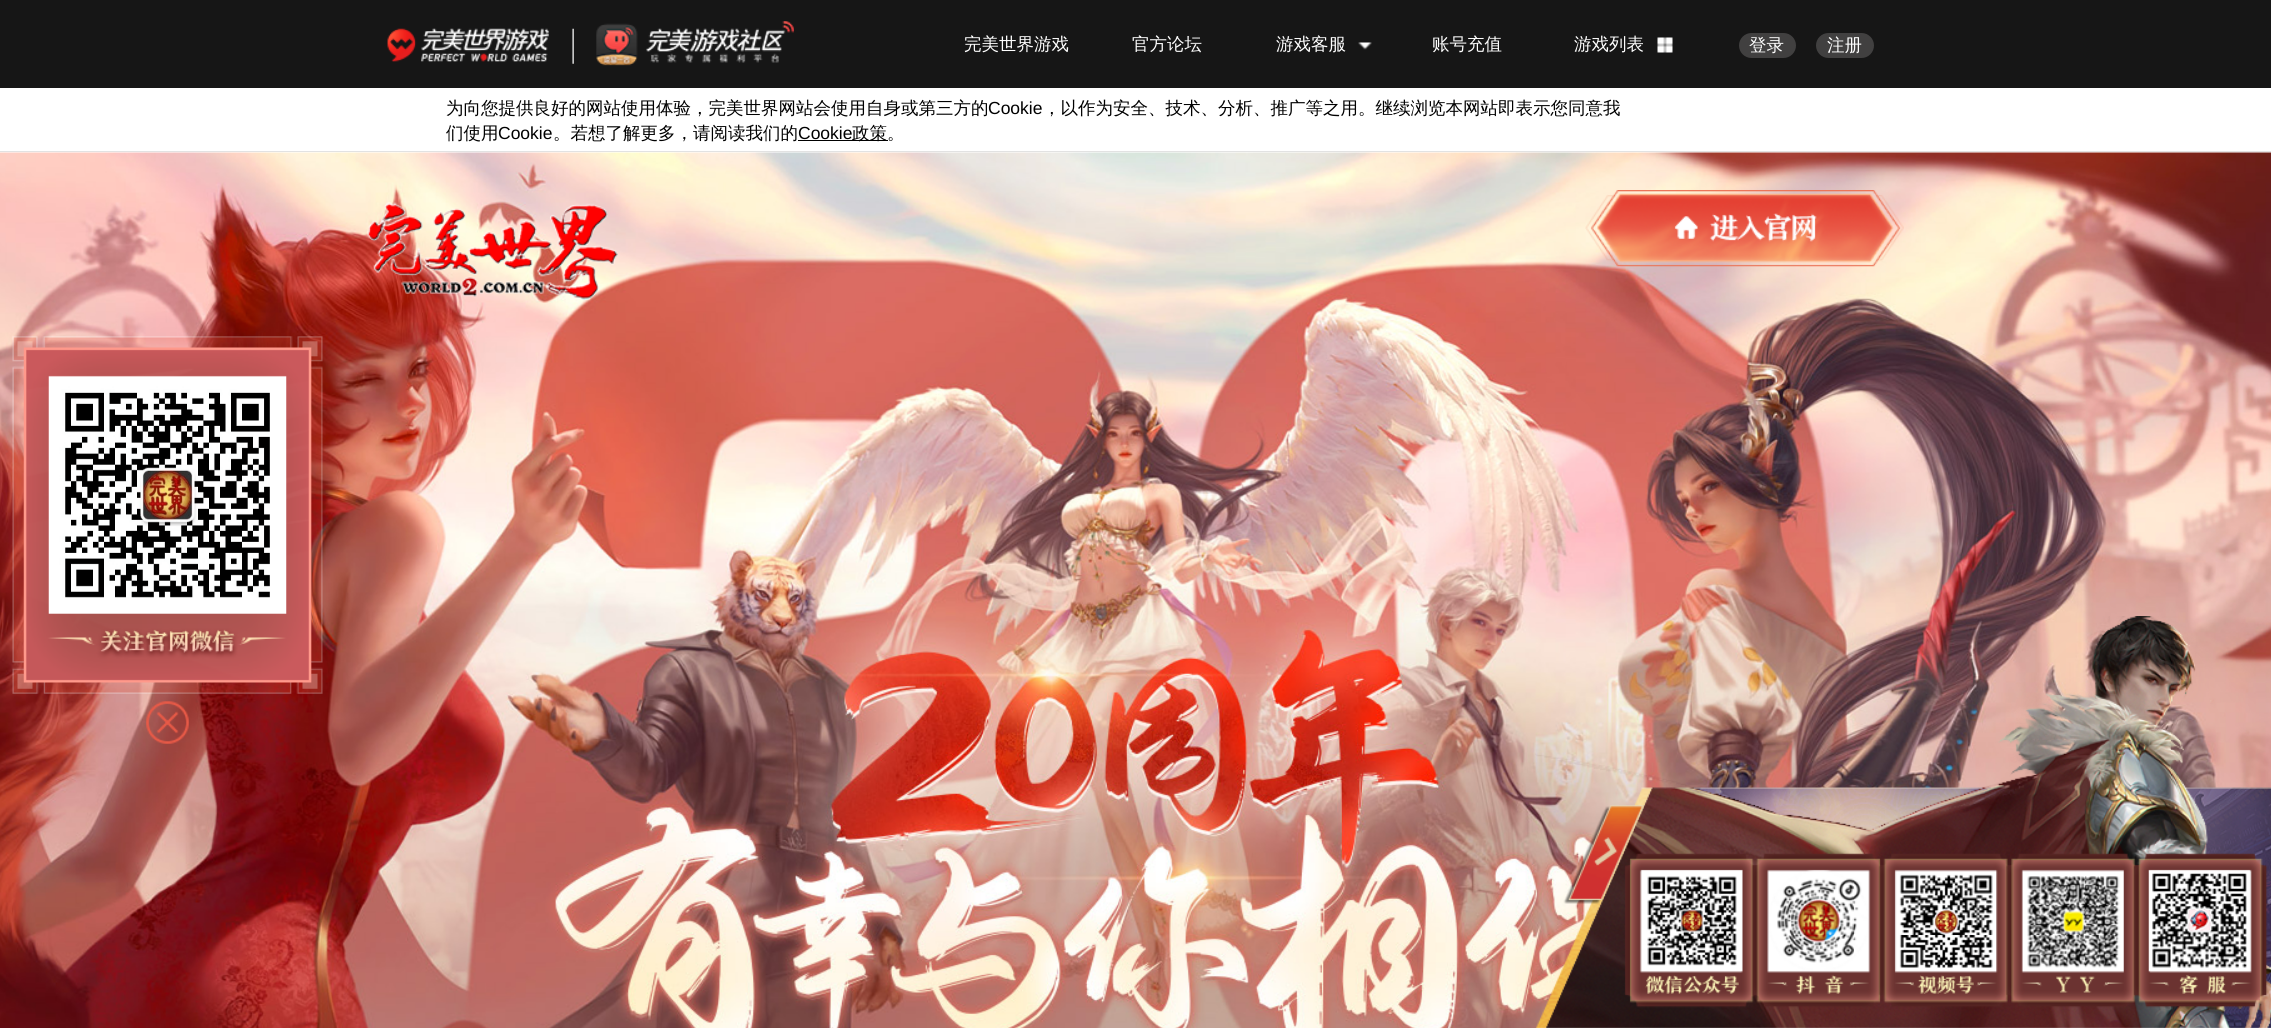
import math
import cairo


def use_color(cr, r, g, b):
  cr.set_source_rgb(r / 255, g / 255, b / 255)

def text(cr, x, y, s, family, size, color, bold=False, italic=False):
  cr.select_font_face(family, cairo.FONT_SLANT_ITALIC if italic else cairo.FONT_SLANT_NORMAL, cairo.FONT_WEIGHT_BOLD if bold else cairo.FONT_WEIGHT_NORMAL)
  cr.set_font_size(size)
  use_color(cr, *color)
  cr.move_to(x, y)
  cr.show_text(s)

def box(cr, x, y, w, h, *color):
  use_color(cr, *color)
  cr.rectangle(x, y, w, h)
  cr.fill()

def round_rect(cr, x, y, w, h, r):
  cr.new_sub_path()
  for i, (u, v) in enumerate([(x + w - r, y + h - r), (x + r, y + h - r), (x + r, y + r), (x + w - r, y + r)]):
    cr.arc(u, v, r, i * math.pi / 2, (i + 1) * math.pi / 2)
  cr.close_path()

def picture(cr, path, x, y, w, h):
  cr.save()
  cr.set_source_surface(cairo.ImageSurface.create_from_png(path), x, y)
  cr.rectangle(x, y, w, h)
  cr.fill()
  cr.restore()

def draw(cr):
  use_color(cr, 255, 255, 255)
  cr.paint()
  box(cr, 0, 0, 2271, 88, 22, 22, 22)
  picture(cr, "img_01.png", 387, 21, 407, 45)
  picture(cr, "img_02.png", 1358, 42, 14, 8)
  picture(cr, "img_03.png", 1657, 37, 16, 16)
  use_color(cr, 65, 64, 64)
  round_rect(cr, 1739, 33, 57, 25, 12.5)
  cr.fill()
  round_rect(cr, 1816, 33, 58, 25, 12.5)
  cr.fill()
  box(cr, 0, 151, 2271, 1, 226, 226, 226)
  box(cr, 798, 140, 90, 1, 0, 0, 0)
  picture(cr, "img_04.png", 0, 152, 2271, 876)
  picture(cr, "img_05.png", 367, 202, 251, 99)
  picture(cr, "img_06.png", 1585, 190, 319, 77)
  picture(cr, "img_07.png", 12, 336, 311, 358)
  picture(cr, "img_08.png", 48, 375, 239, 239)
  picture(cr, "img_09.png", 146, 701, 43, 43)
  picture(cr, "img_10.png", 1535, 616, 736, 412)
  picture(cr, "img_11.png", 1563, 805, 81, 99)
  text(cr, 964, 50, "完美世界游戏", "WenQuanYi Zen Hei Medium", 17.5, (255, 255, 255))
  text(cr, 1132, 50, "官方论坛", "WenQuanYi Zen Hei Medium", 17.5, (255, 255, 255))
  text(cr, 1276, 50, "游戏客服", "WenQuanYi Zen Hei Medium", 17.5, (255, 255, 255))
  text(cr, 1432, 50, "账号充值", "WenQuanYi Zen Hei Medium", 17.5, (255, 255, 255))
  text(cr, 1574, 50, "游戏列表", "WenQuanYi Zen Hei Medium", 17.5, (255, 255, 255))
  text(cr, 1749, 51, "登录", "WenQuanYi Zen Hei Medium", 17.5, (255, 255, 255))
  text(cr, 1827, 51, "注册", "WenQuanYi Zen Hei Medium", 17.5, (255, 255, 255))
  text(cr, 446, 114, "为向您提供良好的网站使用体验，完美世界网站会使用自身或第三方的", "WenQuanYi Zen Hei Medium", 17.5, (0, 0, 0))
  text(cr, 988, 114, "Cookie", "Liberation Sans", 17.5, (0, 0, 0))
  text(cr, 1043, 114, "，以作为安全、技术、分析、推广等之用。继续浏览本网站即表示您同意我", "WenQuanYi Zen Hei Medium", 17.5, (0, 0, 0))
  text(cr, 446, 139, "们使用", "WenQuanYi Zen Hei Medium", 17.5, (0, 0, 0))
  text(cr, 498, 139, "Cookie", "Liberation Sans", 17.5, (0, 0, 0))
  text(cr, 553, 139, "。若想了解更多，请阅读我们的", "WenQuanYi Zen Hei Medium", 17.5, (0, 0, 0))
  text(cr, 798, 139, "Cookie", "Liberation Sans", 17.5, (0, 0, 0))
  text(cr, 852, 139, "政策。", "WenQuanYi Zen Hei Medium", 17.5, (0, 0, 0))


surface = cairo.ImageSurface(cairo.FORMAT_RGB24, 2271, 1028)
cr = cairo.Context(surface)
options = cairo.FontOptions()
options.set_hint_metrics(cairo.HINT_METRICS_OFF)
options.set_hint_style(cairo.HINT_STYLE_NONE)
cr.set_font_options(options)
cr.set_miter_limit(4)
draw(cr)
surface.write_to_png("out.png")
